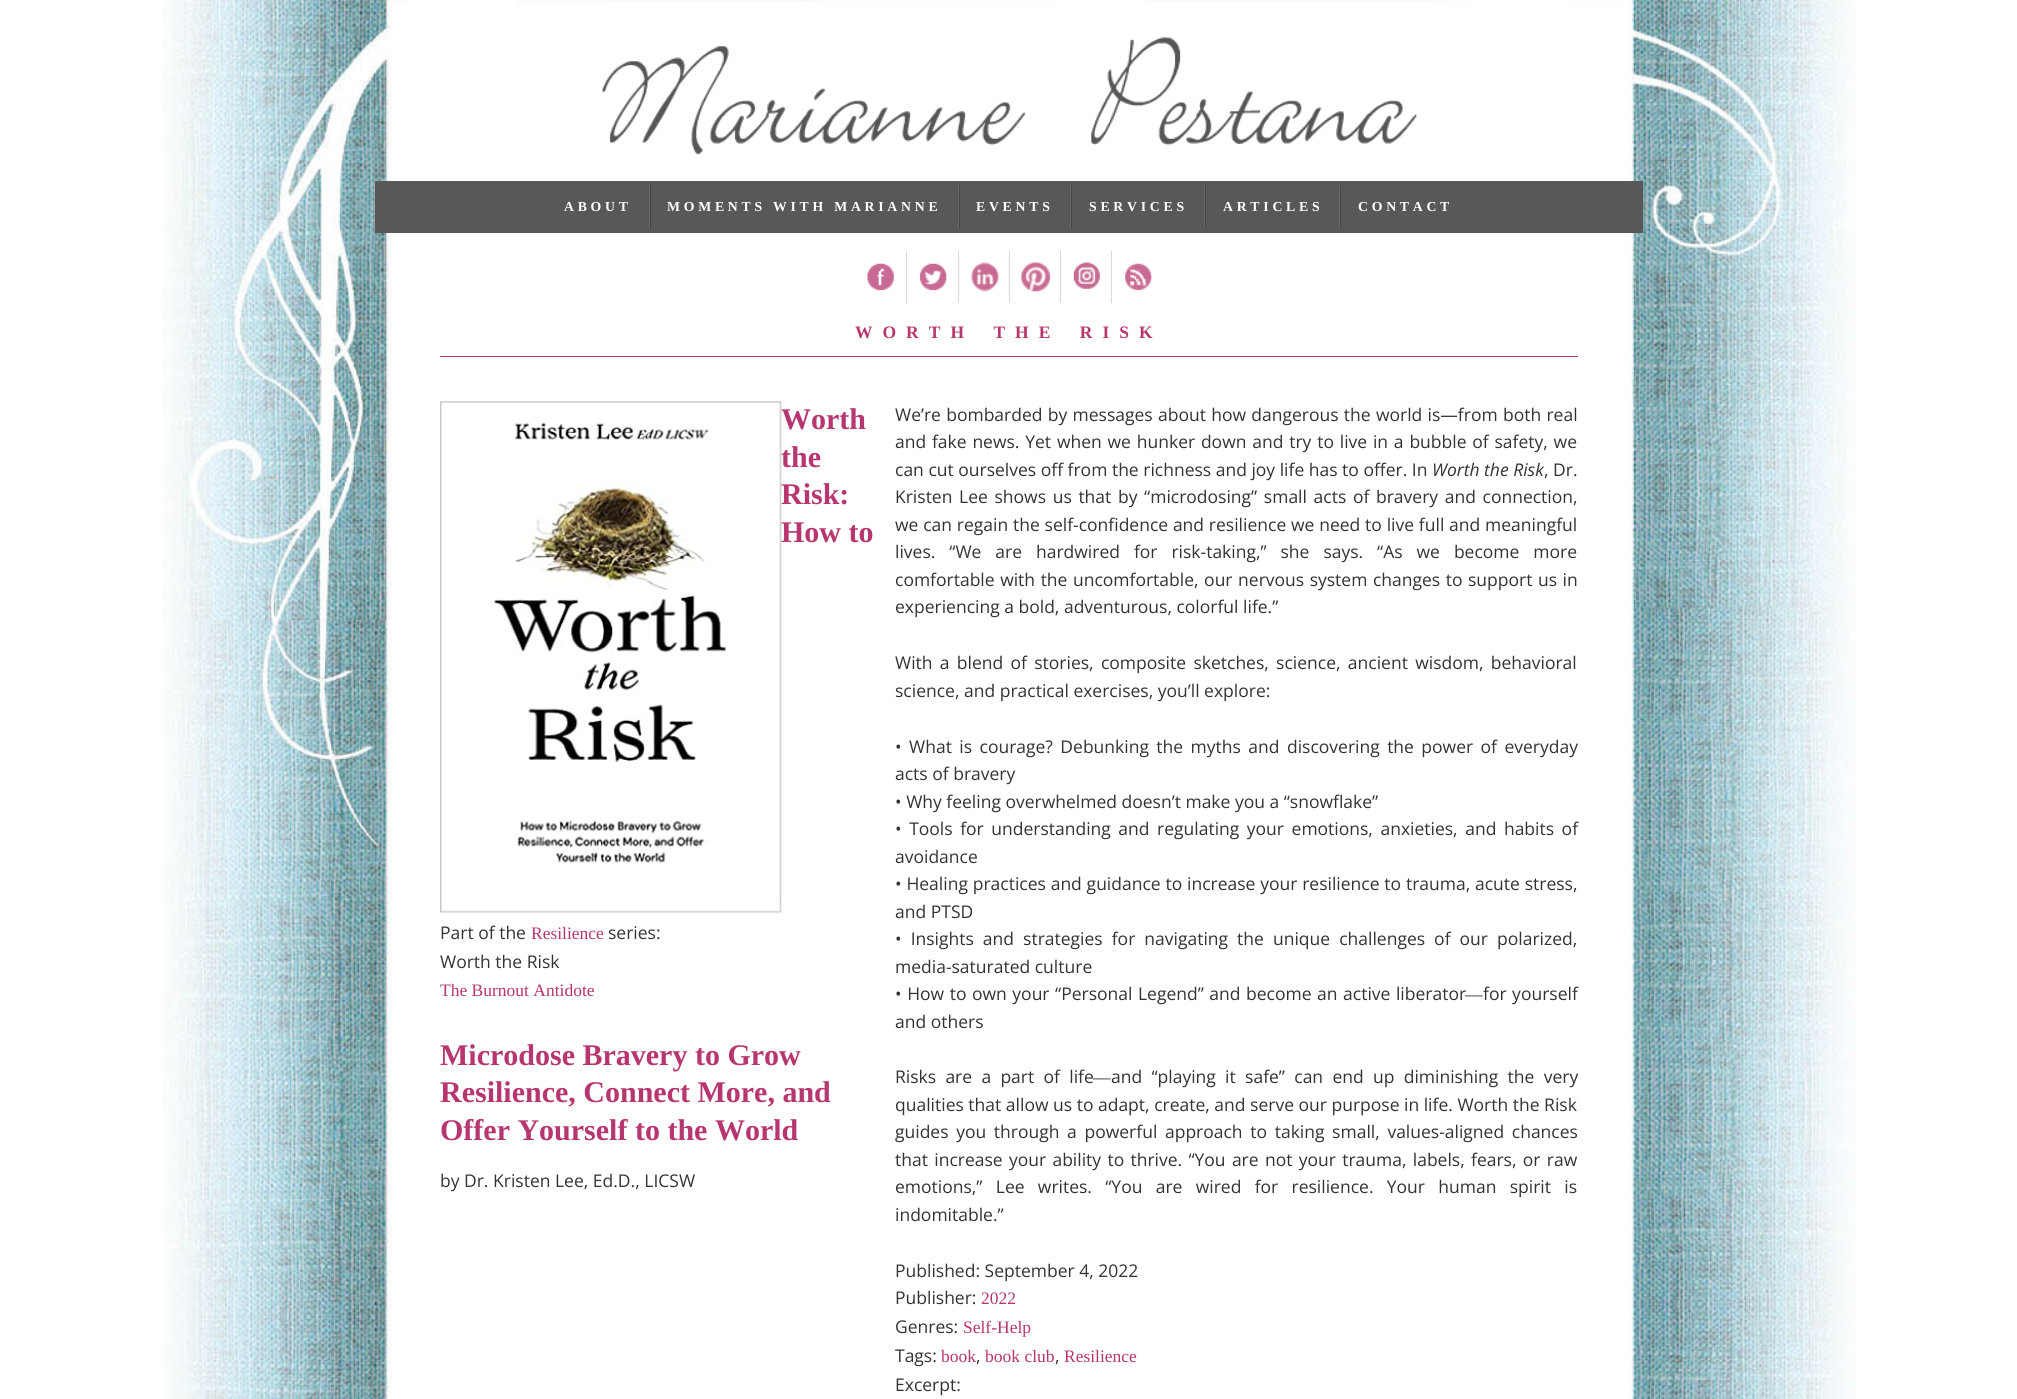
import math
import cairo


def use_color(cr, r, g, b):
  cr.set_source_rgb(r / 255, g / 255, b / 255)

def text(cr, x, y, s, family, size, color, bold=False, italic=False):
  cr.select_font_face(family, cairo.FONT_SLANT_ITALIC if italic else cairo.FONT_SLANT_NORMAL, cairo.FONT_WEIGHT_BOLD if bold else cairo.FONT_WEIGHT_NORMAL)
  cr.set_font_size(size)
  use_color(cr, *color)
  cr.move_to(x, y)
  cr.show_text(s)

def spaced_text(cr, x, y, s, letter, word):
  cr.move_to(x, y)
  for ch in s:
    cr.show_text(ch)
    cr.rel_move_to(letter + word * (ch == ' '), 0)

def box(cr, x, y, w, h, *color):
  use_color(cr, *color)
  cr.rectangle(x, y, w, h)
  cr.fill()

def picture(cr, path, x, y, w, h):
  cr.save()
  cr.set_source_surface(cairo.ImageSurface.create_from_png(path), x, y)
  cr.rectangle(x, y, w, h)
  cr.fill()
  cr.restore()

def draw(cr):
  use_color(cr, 255, 255, 255)
  cr.paint()
  picture(cr, "img_01.png", 162, 0, 1694, 1399)
  picture(cr, "img_02.png", 602, 37, 815, 118)
  box(cr, 375, 181, 1268, 52, 88, 88, 88)
  box(cr, 649, 185, 1, 43, 105, 105, 105)
  box(cr, 958, 185, 1, 43, 105, 105, 105)
  box(cr, 650, 185, 1, 43, 70, 70, 70)
  box(cr, 1070, 185, 1, 43, 105, 105, 105)
  box(cr, 959, 185, 1, 43, 70, 70, 70)
  box(cr, 1204, 185, 1, 43, 105, 105, 105)
  box(cr, 1071, 185, 1, 43, 70, 70, 70)
  box(cr, 1339, 185, 1, 43, 105, 105, 105)
  box(cr, 1205, 185, 1, 43, 70, 70, 70)
  box(cr, 1340, 185, 1, 43, 70, 70, 70)
  picture(cr, "img_03.png", 867, 263, 27, 28)
  picture(cr, "img_04.png", 919, 263, 28, 28)
  box(cr, 906, 251, 1, 52, 217, 217, 217)
  picture(cr, "img_05.png", 971, 262, 28, 30)
  box(cr, 958, 251, 1, 52, 217, 217, 217)
  picture(cr, "img_06.png", 1021, 262, 30, 30)
  box(cr, 1009, 251, 1, 52, 217, 217, 217)
  picture(cr, "img_07.png", 1073, 262, 28, 27)
  box(cr, 1060, 251, 1, 52, 217, 217, 217)
  picture(cr, "img_08.png", 1124, 263, 28, 28)
  box(cr, 1111, 251, 1, 52, 217, 217, 217)
  box(cr, 440, 356, 1138, 1, 184, 54, 111)
  picture(cr, "img_09.png", 440, 401, 342, 512)
  cr.select_font_face("Liberation Serif", cairo.FONT_SLANT_NORMAL, cairo.FONT_WEIGHT_BOLD)
  cr.set_font_size(13.75)
  use_color(cr, 255, 255, 255)
  spaced_text(cr, 564, 211, "ABOUT", 3.75, 0)
  spaced_text(cr, 667, 211, "MOMENTS WITH MARIANNE", 3.75, 0)
  spaced_text(cr, 976, 211, "EVENTS", 3.75, 0)
  spaced_text(cr, 1089, 211, "SERVICES", 3.75, 0)
  spaced_text(cr, 1223, 211, "ARTICLES", 3.75, 0)
  spaced_text(cr, 1358, 211, "CONTACT", 3.75, 0)
  cr.set_font_size(17.5)
  use_color(cr, 184, 54, 111)
  spaced_text(cr, 855, 338, "WORTH THE RISK", 10, 5)
  text(cr, 781, 429, "Worth", "Liberation Serif", 30, (184, 54, 111), bold=True)
  text(cr, 781, 467, "the", "Liberation Serif", 30, (184, 54, 111), bold=True)
  text(cr, 781, 504, "Risk:", "Liberation Serif", 30, (184, 54, 111), bold=True)
  text(cr, 781, 542, "How to", "Liberation Serif", 30, (184, 54, 111), bold=True)
  text(cr, 440, 1065, "Microdose Bravery to Grow", "Liberation Serif", 30, (184, 54, 111), bold=True)
  text(cr, 440, 1102, "Resilience, Connect More, and", "Liberation Serif", 30, (184, 54, 111), bold=True)
  text(cr, 440, 1140, "Offer Yourself to the World", "Liberation Serif", 30, (184, 54, 111), bold=True)
  text(cr, 440, 1187, "by Dr. Kristen Lee, Ed.D., LICSW", "Open Sans", 17.5, (51, 51, 51))
  spaced_text(cr, 895, 421, "We’re bombarded by messages about how dangerous the world is—from both real", 0, 0.75)
  spaced_text(cr, 895, 448, "and fake news. Yet when we hunker down and try to live in a bubble of safety, we", 0, 1.25)
  text(cr, 895, 476, "can cut ourselves off from the richness and joy life has to offer. In", "Open Sans", 17.5, (51, 51, 51))
  text(cr, 1432, 476, "Worth the Risk", "Open Sans", 17.5, (51, 51, 51), italic=True)
  text(cr, 1544, 476, ", Dr.", "Open Sans", 17.5, (51, 51, 51))
  spaced_text(cr, 895, 503, "Kristen Lee shows us that by “microdosing” small acts of bravery and connection,", 0, 2.1)
  spaced_text(cr, 895, 531, "we can regain the self-confidence and resilience we need to live full and meaningful", 0, 0.25)
  spaced_text(cr, 895, 558, "lives. “We are hardwired for risk-taking,” she says. “As we become more", 0, 9.4)
  spaced_text(cr, 895, 586, "comfortable with the uncomfortable, our nervous system changes to support us in", 0, 1)
  text(cr, 895, 613, "experiencing a bold, adventurous, colorful life.”", "Open Sans", 17.5, (51, 51, 51))
  spaced_text(cr, 895, 669, "With a blend of stories, composite sketches, science, ancient wisdom, behavioral", 0, 2.75)
  text(cr, 895, 697, "science, and practical exercises, you’ll explore:", "Open Sans", 17.5, (51, 51, 51))
  spaced_text(cr, 895, 753, "• What is courage? Debunking the myths and discovering the power of everyday", 0, 2.9)
  text(cr, 895, 780, "acts of bravery", "Open Sans", 17.5, (51, 51, 51))
  text(cr, 895, 808, "• Why feeling overwhelmed doesn’t make you a “snowflake”", "Open Sans", 17.5, (51, 51, 51))
  spaced_text(cr, 895, 835, "• Tools for understanding and regulating your emotions, anxieties, and habits of", 0, 3)
  text(cr, 895, 863, "avoidance", "Open Sans", 17.5, (51, 51, 51))
  spaced_text(cr, 895, 890, "• Healing practices and guidance to increase your resilience to trauma, acute stress,", 0, 0.25)
  text(cr, 895, 918, "and PTSD", "Open Sans", 17.5, (51, 51, 51))
  spaced_text(cr, 895, 945, "• Insights and strategies for navigating the unique challenges of our polarized,", 0, 4.5)
  text(cr, 895, 973, "media-saturated culture", "Open Sans", 17.5, (51, 51, 51))
  spaced_text(cr, 895, 1000, "• How to own your “Personal Legend” and become an active liberator", 0, 1)
  text(cr, 1465, 1000, "―", "Liberation Serif", 17.5, (51, 51, 51))
  cr.select_font_face("Open Sans")
  spaced_text(cr, 1483, 1000, "for yourself", 0, 1)
  text(cr, 895, 1028, "and others", "Open Sans", 17.5, (51, 51, 51))
  spaced_text(cr, 895, 1083, "Risks are a part of life", 0, 4.75)
  text(cr, 1093, 1083, "―", "Liberation Serif", 17.5, (51, 51, 51))
  cr.select_font_face("Open Sans")
  spaced_text(cr, 1111, 1083, "and “playing it safe” can end up diminishing the very", 0, 4.75)
  text(cr, 895, 1111, "qualities that allow us to adapt, create, and serve our purpose in life. Worth the Risk", "Open Sans", 17.5, (51, 51, 51))
  spaced_text(cr, 895, 1138, "guides you through a powerful approach to taking small, values-aligned chances", 0, 3.1)
  spaced_text(cr, 895, 1166, "that increase your ability to thrive. “You are not your trauma, labels, fears, or raw", 0, 1.75)
  spaced_text(cr, 895, 1193, "emotions,” Lee writes. “You are wired for resilience. Your human spirit is", 0, 8.75)
  text(cr, 895, 1221, "indomitable.”", "Open Sans", 17.5, (51, 51, 51))
  text(cr, 895, 1277, "Published: September 4, 2022", "Open Sans", 17.5, (51, 51, 51))
  text(cr, 895, 1304, "Publisher:", "Open Sans", 17.5, (51, 51, 51))
  text(cr, 981, 1304, "2022", "Liberation Serif", 17.5, (184, 54, 111))
  text(cr, 895, 1333, "Genres:", "Open Sans", 17.5, (51, 51, 51))
  text(cr, 963, 1333, "Self-Help", "Liberation Serif", 17.5, (184, 54, 111))
  text(cr, 895, 1362, "Tags:", "Open Sans", 17.5, (51, 51, 51))
  text(cr, 941, 1362, "book", "Liberation Serif", 17.5, (184, 54, 111))
  text(cr, 976, 1362, ",", "Open Sans", 17.5, (51, 51, 51))
  text(cr, 985, 1362, "book club", "Liberation Serif", 17.5, (184, 54, 111))
  text(cr, 1055, 1362, ",", "Open Sans", 17.5, (51, 51, 51))
  text(cr, 1064, 1362, "Resilience", "Liberation Serif", 17.5, (184, 54, 111))
  text(cr, 895, 1391, "Excerpt:", "Open Sans", 17.5, (51, 51, 51))
  text(cr, 440, 939, "Part of the", "Open Sans", 17.5, (51, 51, 51))
  text(cr, 531, 939, "Resilience", "Liberation Serif", 17.5, (184, 54, 111))
  text(cr, 608, 939, "series:", "Open Sans", 17.5, (51, 51, 51))
  text(cr, 440, 968, "Worth the Risk", "Open Sans", 17.5, (51, 51, 51))
  text(cr, 440, 996, "The Burnout Antidote", "Liberation Serif", 17.5, (184, 54, 111))


surface = cairo.ImageSurface(cairo.FORMAT_RGB24, 2017, 1399)
cr = cairo.Context(surface)
options = cairo.FontOptions()
options.set_hint_metrics(cairo.HINT_METRICS_OFF)
options.set_hint_style(cairo.HINT_STYLE_NONE)
cr.set_font_options(options)
cr.set_miter_limit(4)
draw(cr)
surface.write_to_png("out.png")
